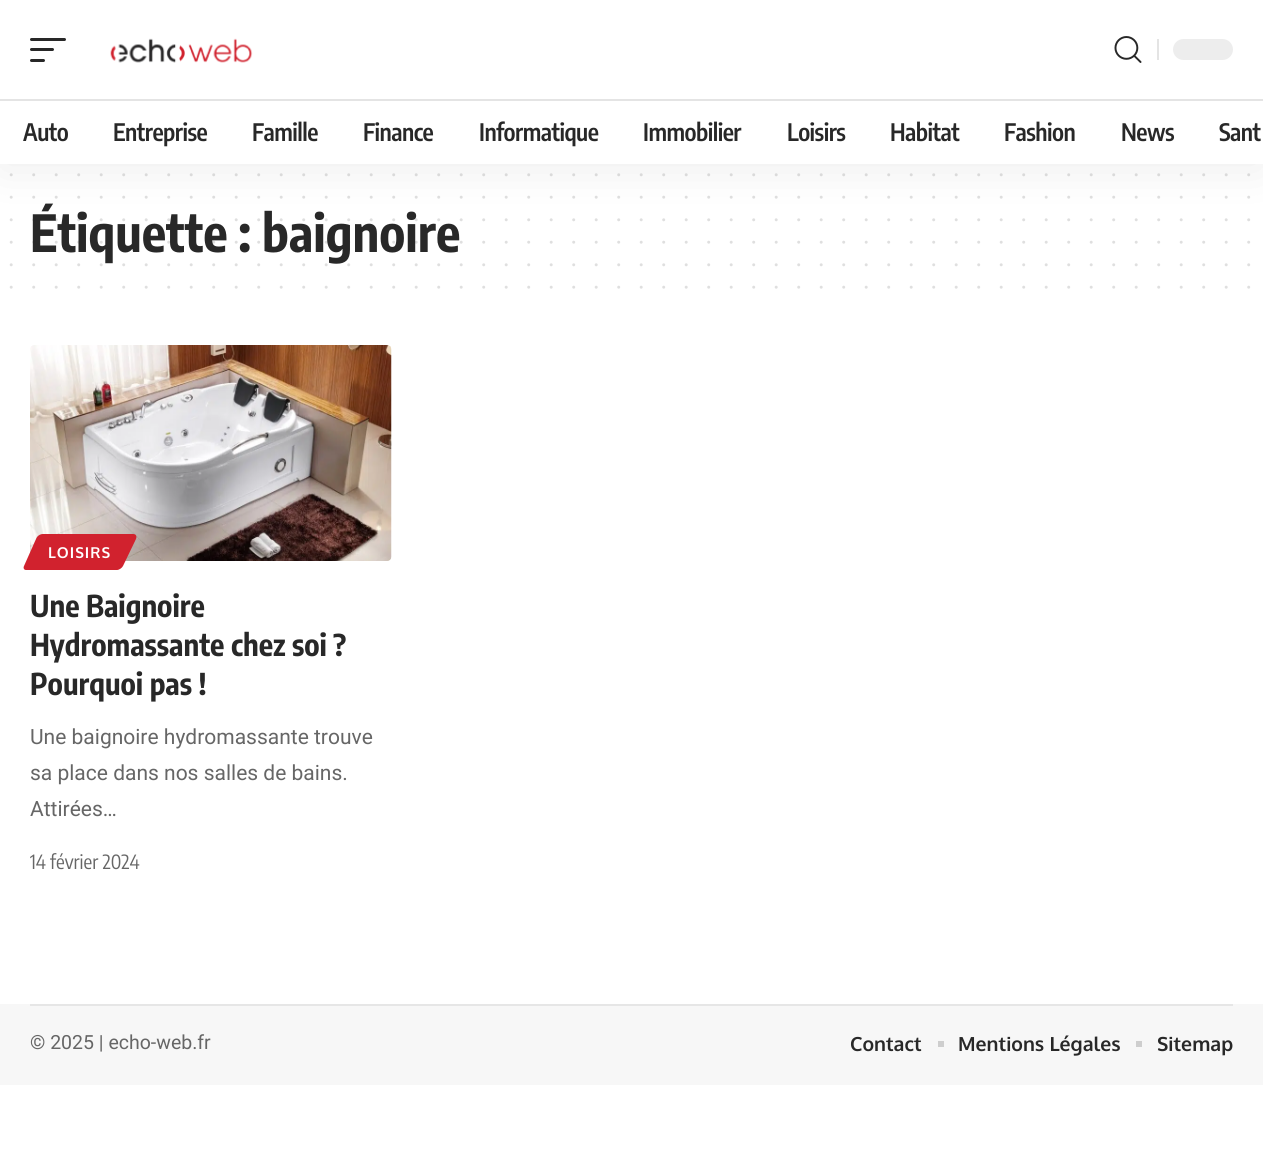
import math
import cairo


def use_color(cr, r, g, b):
  cr.set_source_rgb(r / 255, g / 255, b / 255)

def text(cr, x, y, s, family, size, color, bold=False, italic=False):
  cr.select_font_face(family, cairo.FONT_SLANT_ITALIC if italic else cairo.FONT_SLANT_NORMAL, cairo.FONT_WEIGHT_BOLD if bold else cairo.FONT_WEIGHT_NORMAL)
  cr.set_font_size(size)
  use_color(cr, *color)
  cr.move_to(x, y)
  cr.show_text(s)

def spaced_text(cr, x, y, s, letter, word):
  cr.move_to(x, y)
  for ch in s:
    cr.show_text(ch)
    cr.rel_move_to(letter + word * (ch == ' '), 0)

def box(cr, x, y, w, h, *color):
  use_color(cr, *color)
  cr.rectangle(x, y, w, h)
  cr.fill()

def round_rect(cr, x, y, w, h, r):
  cr.new_sub_path()
  for i, (u, v) in enumerate([(x + w - r, y + h - r), (x + r, y + h - r), (x + r, y + r), (x + w - r, y + r)]):
    cr.arc(u, v, r, i * math.pi / 2, (i + 1) * math.pi / 2)
  cr.close_path()

def shadow(cr, x, y, w, h, r, blur, alpha):
  cr.push_group_with_content(cairo.CONTENT_ALPHA)
  cr.set_operator(cairo.OPERATOR_SOURCE)
  for i in range(15, -16, -2):
    e = blur * i / 6
    if min(w, h) + 2 * e > 0:
      cr.set_source_rgba(0, 0, 0, alpha * math.erfc((i - 1) / 8.5) / 2)
      round_rect(cr, x - e, y - e, w + 2 * e, h + 2 * e, max(0, min(r + e + blur * .6, min(w, h) / 2 + e)))
      cr.fill()
  cr.mask(cr.pop_group())

def picture(cr, path, x, y, w, h):
  cr.save()
  cr.set_source_surface(cairo.ImageSurface.create_from_png(path), x, y)
  cr.rectangle(x, y, w, h)
  cr.fill()
  cr.restore()

def draw(cr):
  use_color(cr, 255, 255, 255)
  cr.paint()
  cr.new_path()
  cr.move_to(11.2, 174.8)
  cr.line_to(1249.1, 174.8)
  use_color(cr, 223, 223, 223)
  cr.set_line_width(3)
  cr.set_line_cap(cairo.LINE_CAP_ROUND)
  cr.set_dash([0, 22.5])
  cr.stroke()
  cr.new_path()
  cr.move_to(11.2, 197.2)
  cr.line_to(1249.1, 197.2)
  cr.stroke()
  cr.new_path()
  cr.move_to(11.2, 287.2)
  cr.line_to(1249.1, 287.2)
  cr.stroke()
  picture(cr, "img_03.png", 30, 345, 362, 216)
  use_color(cr, 209, 34, 46)
  cr.new_path()
  cr.move_to(43, 534)
  cr.line_to(133, 534)
  cr.curve_to(136, 534, 137, 536, 136, 539)
  cr.line_to(123, 566)
  cr.curve_to(122, 568, 119, 570, 117, 570)
  cr.line_to(26, 570)
  cr.curve_to(24, 570, 23, 568, 24, 566)
  cr.line_to(36, 539)
  cr.curve_to(37, 536, 40, 534, 43, 534)
  cr.close_path()
  cr.fill()
  box(cr, 0, 1004, 1263, 81, 247, 247, 247)
  box(cr, 30, 1004, 1203, 2, 230, 230, 230)
  box(cr, 938, 1041, 6, 6, 206, 206, 206)
  box(cr, 1136, 1041, 6, 6, 206, 206, 206)
  text(cr, 30, 252, "Étiquette : baignoire", "Encode Sans Condensed", 51, (40, 40, 40), bold=True)
  cr.new_path()
  cr.move_to(11.2, 219.8)
  cr.line_to(1249.1, 219.8)
  cr.set_source_rgba(0.157, 0.157, 0.157, 0.15)
  cr.stroke()
  use_color(cr, 0, 0, 0)
  shadow(cr, 0, 6, 1263, 164, 0, 22.5, 0.07)
  box(cr, 0, 0, 1263, 164, 255, 255, 255)
  cr.select_font_face("Encode Sans Condensed SemiBold")
  cr.set_font_size(24)
  use_color(cr, 40, 40, 40)
  spaced_text(cr, 1219, 141, "Sant", -0.5, 0)
  spaced_text(cr, 1121, 141, "News", -0.5, 0)
  spaced_text(cr, 1004, 141, "Fashion", -0.5, 0)
  spaced_text(cr, 890, 141, "Habitat", -0.5, 0)
  spaced_text(cr, 787, 141, "Loisirs", -0.5, 0)
  spaced_text(cr, 643, 141, "Immobilier", -0.5, 0)
  spaced_text(cr, 479, 141, "Informatique", -0.5, 0)
  spaced_text(cr, 363, 141, "Finance", -0.5, 0)
  spaced_text(cr, 252, 141, "Famille", -0.5, 0)
  spaced_text(cr, 113, 141, "Entreprise", -0.5, 0)
  spaced_text(cr, 23, 141, "Auto", -0.5, 0)
  box(cr, 0, 99, 1263, 2, 228, 228, 228)
  use_color(cr, 237, 237, 237)
  round_rect(cr, 1173, 39, 60, 21, 10.5)
  cr.fill()
  box(cr, 1157, 39, 2, 21, 228, 228, 228)
  picture(cr, "img_02.png", 1114, 36, 28, 27)
  use_color(cr, 40, 40, 40)
  round_rect(cr, 30, 59, 15, 3, 1.5)
  cr.fill()
  round_rect(cr, 30, 48, 24, 3, 1.5)
  cr.fill()
  round_rect(cr, 30, 38, 36, 3, 1.5)
  cr.fill()
  picture(cr, "img_01.png", 110, 38, 143, 25)
  cr.new_path()
  cr.move_to(11.2, 264.8)
  cr.line_to(1249.1, 264.8)
  use_color(cr, 223, 223, 223)
  cr.stroke()
  cr.new_path()
  cr.move_to(11.2, 242.2)
  cr.line_to(1249.1, 242.2)
  cr.set_source_rgba(0.157, 0.157, 0.157, 0.15)
  cr.stroke()
  cr.select_font_face("Oxygen", cairo.FONT_SLANT_NORMAL, cairo.FONT_WEIGHT_BOLD)
  cr.set_font_size(15)
  use_color(cr, 255, 255, 255)
  spaced_text(cr, 48, 558, "LOISIRS", 1, 0)
  text(cr, 30, 617, "Une Baignoire", "Encode Sans Condensed", 30, (40, 40, 40), bold=True)
  text(cr, 30, 656, "Hydromassante chez soi ?", "Encode Sans Condensed", 30, (40, 40, 40), bold=True)
  text(cr, 30, 695, "Pourquoi pas !", "Encode Sans Condensed", 30, (40, 40, 40), bold=True)
  text(cr, 30, 744, "Une baignoire hydromassante trouve", "Roboto", 21, (102, 102, 102))
  text(cr, 30, 780, "sa place dans nos salles de bains.", "Roboto", 21, (102, 102, 102))
  text(cr, 30, 816, "Attirées…", "Roboto", 21, (102, 102, 102))
  text(cr, 30, 869, "14 février 2024", "Encode Sans Condensed", 19.5, (102, 102, 102))
  text(cr, 30, 1049, "© 2025 | echo-web.fr", "Roboto", 19.5, (102, 102, 102))
  text(cr, 850, 1051, "Contact", "Oxygen", 19.5, (40, 40, 40), bold=True)
  text(cr, 958, 1051, "Mentions Légales", "Oxygen", 19.5, (40, 40, 40), bold=True)
  text(cr, 1157, 1051, "Sitemap", "Oxygen", 19.5, (40, 40, 40), bold=True)


surface = cairo.ImageSurface(cairo.FORMAT_RGB24, 1263, 1170)
cr = cairo.Context(surface)
options = cairo.FontOptions()
options.set_hint_metrics(cairo.HINT_METRICS_OFF)
options.set_hint_style(cairo.HINT_STYLE_NONE)
cr.set_font_options(options)
cr.set_miter_limit(4)
draw(cr)
surface.write_to_png("out.png")
